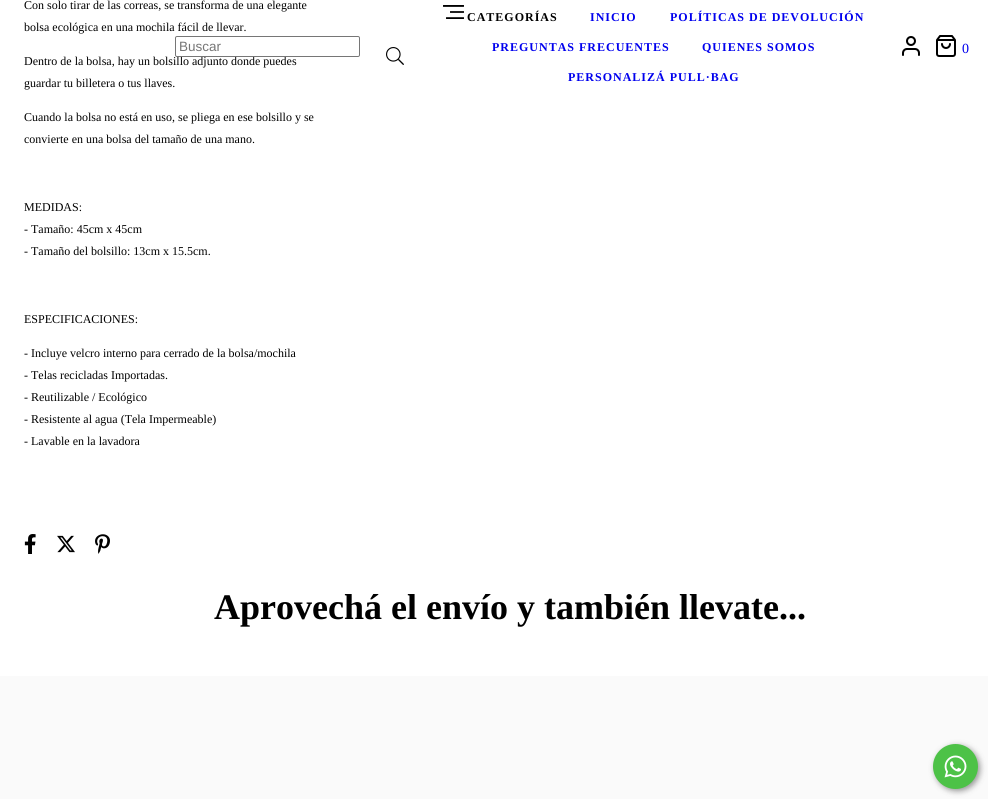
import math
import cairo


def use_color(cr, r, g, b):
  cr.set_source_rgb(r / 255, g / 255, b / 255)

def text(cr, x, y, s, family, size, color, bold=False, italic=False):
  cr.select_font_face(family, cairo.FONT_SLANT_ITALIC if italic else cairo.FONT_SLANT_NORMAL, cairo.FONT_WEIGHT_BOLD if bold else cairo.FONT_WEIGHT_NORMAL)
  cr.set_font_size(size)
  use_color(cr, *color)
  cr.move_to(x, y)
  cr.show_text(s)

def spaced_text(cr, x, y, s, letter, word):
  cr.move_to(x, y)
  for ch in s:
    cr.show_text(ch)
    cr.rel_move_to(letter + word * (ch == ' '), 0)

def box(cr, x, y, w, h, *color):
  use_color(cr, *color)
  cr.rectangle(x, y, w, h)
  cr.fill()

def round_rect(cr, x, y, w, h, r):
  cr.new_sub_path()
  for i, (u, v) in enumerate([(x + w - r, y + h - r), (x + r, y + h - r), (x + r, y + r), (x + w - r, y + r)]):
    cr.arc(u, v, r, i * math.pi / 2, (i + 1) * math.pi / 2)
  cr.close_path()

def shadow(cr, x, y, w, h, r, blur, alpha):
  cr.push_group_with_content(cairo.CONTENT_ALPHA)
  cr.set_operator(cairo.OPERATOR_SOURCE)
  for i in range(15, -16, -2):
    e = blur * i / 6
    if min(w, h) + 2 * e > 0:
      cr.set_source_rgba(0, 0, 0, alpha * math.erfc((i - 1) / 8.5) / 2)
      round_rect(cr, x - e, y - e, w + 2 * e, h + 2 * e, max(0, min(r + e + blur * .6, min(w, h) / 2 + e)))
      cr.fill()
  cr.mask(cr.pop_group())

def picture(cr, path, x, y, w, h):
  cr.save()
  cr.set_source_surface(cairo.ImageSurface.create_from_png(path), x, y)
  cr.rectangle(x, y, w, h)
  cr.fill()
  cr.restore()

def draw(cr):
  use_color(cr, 255, 255, 255)
  cr.paint()
  picture(cr, "img_01.png", 24, 534, 12, 20)
  picture(cr, "img_02.png", 57, 535, 18, 18)
  picture(cr, "img_03.png", 95, 534, 15, 20)
  picture(cr, "img_04.png", 386, 47, 18, 18)
  picture(cr, "img_05.png", 443, 5, 21, 14)
  picture(cr, "img_06.png", 902, 36, 18, 20)
  picture(cr, "img_07.png", 936, 35, 20, 22)
  box(cr, 0, 676, 988, 123, 250, 250, 250)
  use_color(cr, 0, 0, 0)
  shadow(cr, 935, 746, 45, 45, 22.5, 3, 0.4)
  use_color(cr, 77, 194, 71)
  cr.arc(955.5, 766.5, 22.5, 0, 2 * math.pi)
  cr.fill()
  picture(cr, "img_08.png", 944, 755, 23, 23)
  text(cr, 24, 9, "Con solo tirar de las correas, se transforma de una elegante", "Liberation Serif", 12, (0, 0, 0))
  text(cr, 24, 31, "bolsa ecológica en una mochila fácil de llevar.", "Liberation Serif", 12, (0, 0, 0))
  text(cr, 24, 65, "Dentro de la bolsa, hay un bolsillo adjunto donde puedes", "Liberation Serif", 12, (0, 0, 0))
  text(cr, 24, 87, "guardar tu billetera o tus llaves.", "Liberation Serif", 12, (0, 0, 0))
  text(cr, 24, 121, "Cuando la bolsa no está en uso, se pliega en ese bolsillo y se", "Liberation Serif", 12, (0, 0, 0))
  text(cr, 24, 143, "convierte en una bolsa del tamaño de una mano.", "Liberation Serif", 12, (0, 0, 0))
  text(cr, 24, 211, "MEDIDAS:", "Liberation Serif", 12, (0, 0, 0))
  text(cr, 24, 233, "- Tamaño: 45cm x 45cm", "Liberation Serif", 12, (0, 0, 0))
  text(cr, 24, 255, "- Tamaño del bolsillo: 13cm x 15.5cm.", "Liberation Serif", 12, (0, 0, 0))
  text(cr, 24, 323, "ESPECIFICACIONES:", "Liberation Serif", 12, (0, 0, 0))
  text(cr, 24, 357, "- Incluye velcro interno para cerrado de la bolsa/mochila", "Liberation Serif", 12, (0, 0, 0))
  text(cr, 24, 379, "- Telas recicladas Importadas.", "Liberation Serif", 12, (0, 0, 0))
  text(cr, 24, 401, "- Reutilizable / Ecológico", "Liberation Serif", 12, (0, 0, 0))
  text(cr, 24, 423, "- Resistente al agua (Tela Impermeable)", "Liberation Serif", 12, (0, 0, 0))
  text(cr, 24, 445, "- Lavable en la lavadora", "Liberation Serif", 12, (0, 0, 0))
  use_color(cr, 255, 255, 255)
  round_rect(cr, 175.5, 36.5, 184, 20, 1.5)
  cr.fill_preserve()
  use_color(cr, 118, 118, 118)
  cr.set_line_width(1)
  cr.stroke()
  text(cr, 179, 51, "Buscar", "Liberation Sans", 13.5, (117, 117, 117))
  cr.select_font_face("Liberation Serif", cairo.FONT_SLANT_NORMAL, cairo.FONT_WEIGHT_BOLD)
  cr.set_font_size(12)
  use_color(cr, 0, 0, 0)
  spaced_text(cr, 467, 21, "CATEGORÍAS", 1, 0)
  use_color(cr, 0, 0, 238)
  spaced_text(cr, 590, 21, "INICIO", 1, 0)
  spaced_text(cr, 670, 21, "POLÍTICAS DE DEVOLUCIÓN", 1, 0)
  spaced_text(cr, 492, 51, "PREGUNTAS FRECUENTES", 1, 0)
  spaced_text(cr, 702, 51, "QUIENES SOMOS", 1, 0)
  spaced_text(cr, 568, 81, "PERSONALIZÁ PULL·BAG", 1, 0)
  text(cr, 962, 53, "0", "Liberation Serif", 14, (0, 0, 238))
  text(cr, 214, 619, "Aprovechá el envío y también llevate...", "Liberation Serif", 36, (0, 0, 0), bold=True)


surface = cairo.ImageSurface(cairo.FORMAT_RGB24, 988, 799)
cr = cairo.Context(surface)
options = cairo.FontOptions()
options.set_hint_metrics(cairo.HINT_METRICS_OFF)
options.set_hint_style(cairo.HINT_STYLE_NONE)
cr.set_font_options(options)
cr.set_miter_limit(4)
draw(cr)
surface.write_to_png("out.png")
